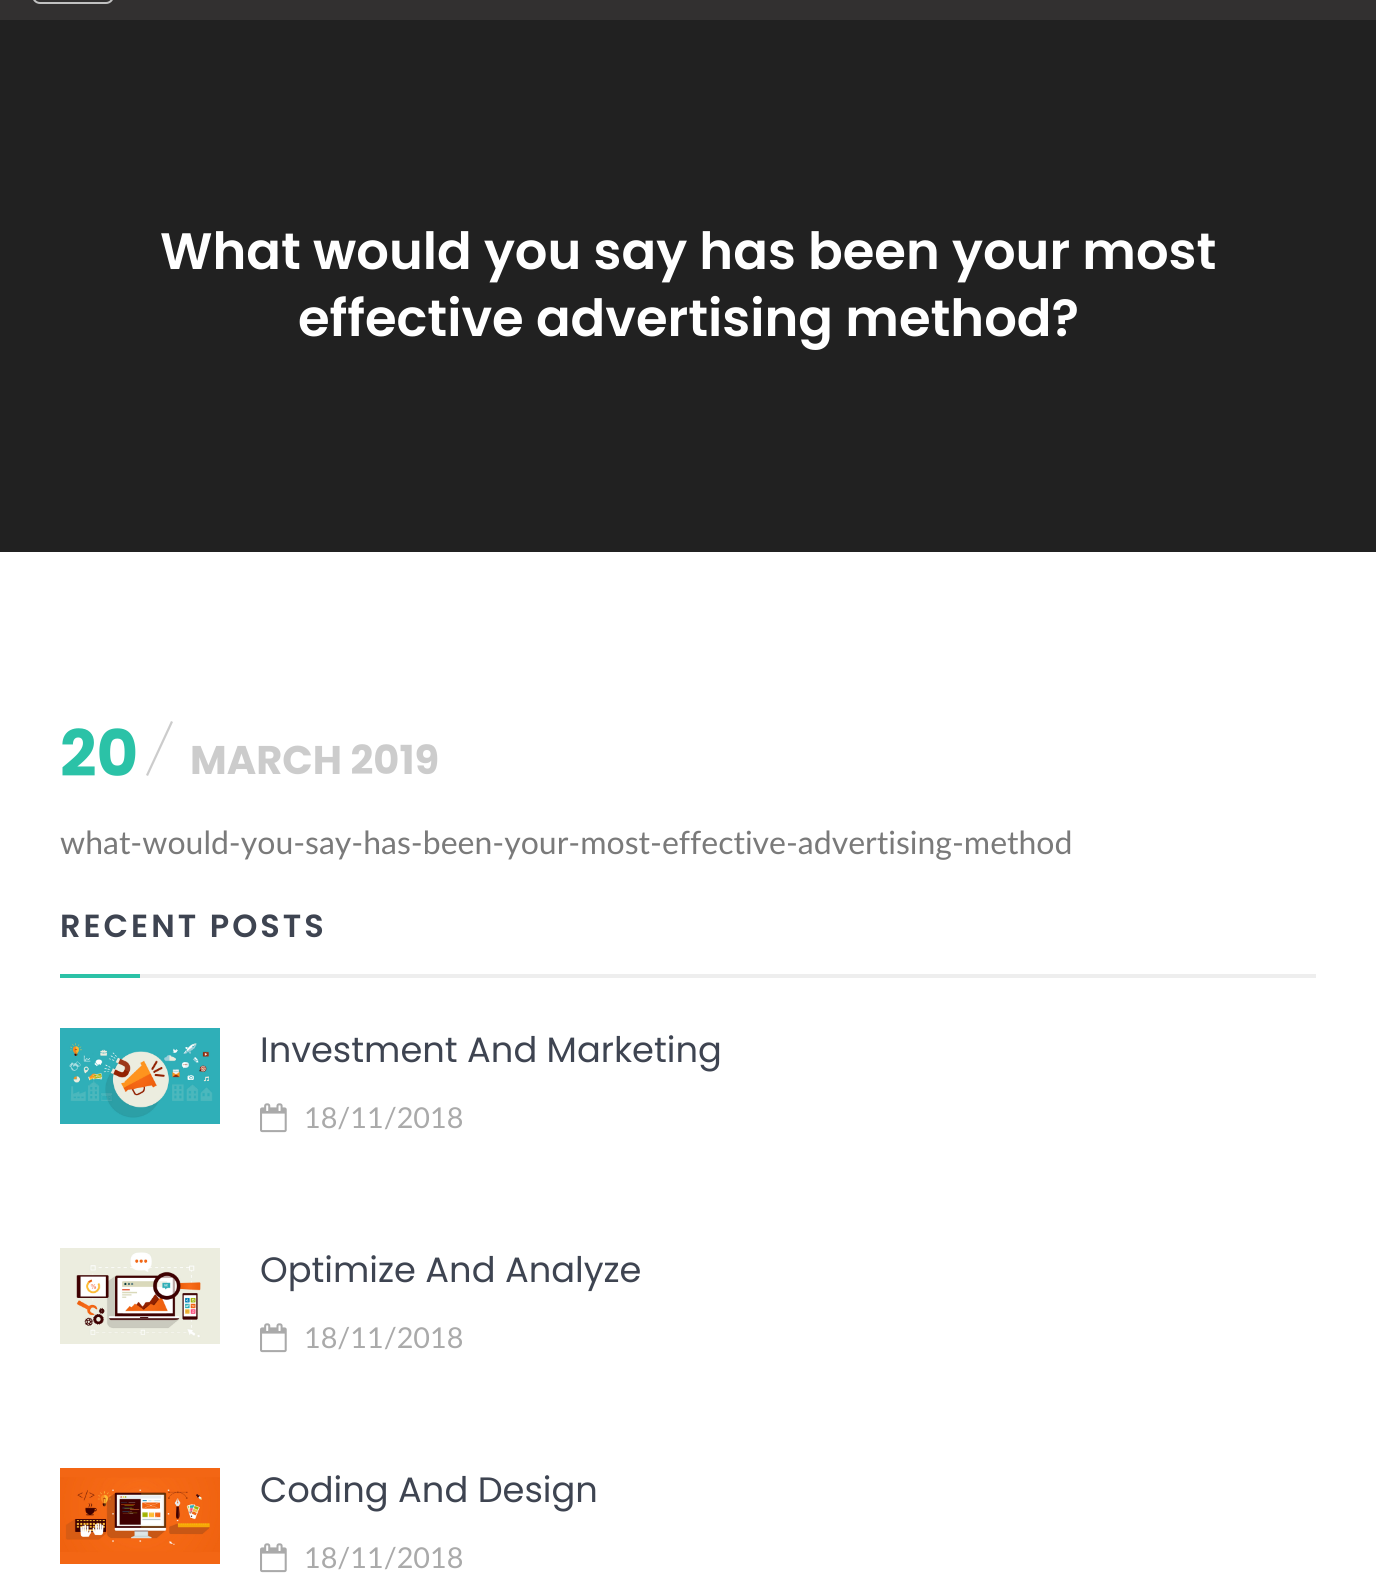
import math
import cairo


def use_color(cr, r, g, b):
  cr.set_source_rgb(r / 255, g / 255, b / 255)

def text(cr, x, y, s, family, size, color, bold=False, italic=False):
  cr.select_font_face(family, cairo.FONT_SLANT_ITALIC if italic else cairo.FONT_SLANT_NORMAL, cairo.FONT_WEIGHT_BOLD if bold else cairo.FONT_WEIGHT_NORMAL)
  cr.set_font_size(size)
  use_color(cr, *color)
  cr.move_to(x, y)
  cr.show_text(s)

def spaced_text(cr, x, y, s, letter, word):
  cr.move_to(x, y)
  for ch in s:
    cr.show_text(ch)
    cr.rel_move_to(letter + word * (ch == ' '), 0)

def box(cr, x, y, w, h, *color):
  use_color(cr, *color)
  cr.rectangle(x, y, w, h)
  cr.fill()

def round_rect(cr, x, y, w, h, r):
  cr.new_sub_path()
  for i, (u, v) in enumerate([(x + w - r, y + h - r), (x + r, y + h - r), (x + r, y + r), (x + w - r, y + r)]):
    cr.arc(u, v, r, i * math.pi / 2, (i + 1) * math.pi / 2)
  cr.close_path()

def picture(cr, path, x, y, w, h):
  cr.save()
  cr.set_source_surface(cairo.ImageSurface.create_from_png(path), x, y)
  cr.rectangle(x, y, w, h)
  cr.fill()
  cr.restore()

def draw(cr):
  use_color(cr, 255, 255, 255)
  cr.paint()
  box(cr, 0, 0, 1376, 20, 50, 48, 48)
  round_rect(cr, 33, -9, 80, 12, 7)
  use_color(cr, 193, 193, 193)
  cr.stroke()
  box(cr, 0, 20, 1376, 532, 33, 33, 33)
  use_color(cr, 204, 204, 204)
  cr.new_path()
  cr.move_to(171, 721)
  cr.line_to(173, 722)
  cr.line_to(148, 776)
  cr.line_to(146, 775)
  cr.close_path()
  cr.fill()
  box(cr, 60, 974, 80, 4, 43, 194, 167)
  box(cr, 140, 974, 1176, 4, 238, 238, 238)
  picture(cr, "img_01.png", 60, 1028, 160, 96)
  picture(cr, "img_02.png", 260, 1103, 27, 30)
  picture(cr, "img_03.png", 60, 1248, 160, 96)
  picture(cr, "img_02.png", 260, 1323, 27, 30)
  picture(cr, "img_04.png", 60, 1468, 160, 96)
  picture(cr, "img_02.png", 260, 1543, 27, 30)
  text(cr, 160, 269, "What would you say has been your most", "Poppins SemiBold", 51.2, (255, 255, 255))
  text(cr, 298, 336, "effective advertising method?", "Poppins SemiBold", 51.2, (255, 255, 255))
  text(cr, 60, 776, "20", "Poppins", 64, (43, 194, 167), bold=True)
  text(cr, 190, 774, "MARCH 2019", "Poppins", 40, (204, 204, 204), bold=True)
  text(cr, 60, 854, "what-would-you-say-has-been-your-most-effective-advertising-method", "Lato", 32, (122, 122, 122))
  cr.select_font_face("Poppins SemiBold")
  use_color(cr, 62, 68, 81)
  spaced_text(cr, 60, 937, "RECENT POSTS", 3, 0)
  text(cr, 260, 1062, "Investment And Marketing", "Poppins", 35.25, (62, 68, 81))
  text(cr, 304, 1128, "18/11/2018", "Lato", 28.75, (170, 170, 170))
  text(cr, 260, 1282, "Optimize And Analyze", "Poppins", 35.25, (62, 68, 81))
  text(cr, 304, 1348, "18/11/2018", "Lato", 28.75, (170, 170, 170))
  text(cr, 260, 1502, "Coding And Design", "Poppins", 35.25, (62, 68, 81))
  text(cr, 304, 1568, "18/11/2018", "Lato", 28.75, (170, 170, 170))


surface = cairo.ImageSurface(cairo.FORMAT_RGB24, 1376, 1590)
cr = cairo.Context(surface)
options = cairo.FontOptions()
options.set_hint_metrics(cairo.HINT_METRICS_OFF)
options.set_hint_style(cairo.HINT_STYLE_NONE)
cr.set_font_options(options)
cr.set_miter_limit(4)
draw(cr)
surface.write_to_png("out.png")
